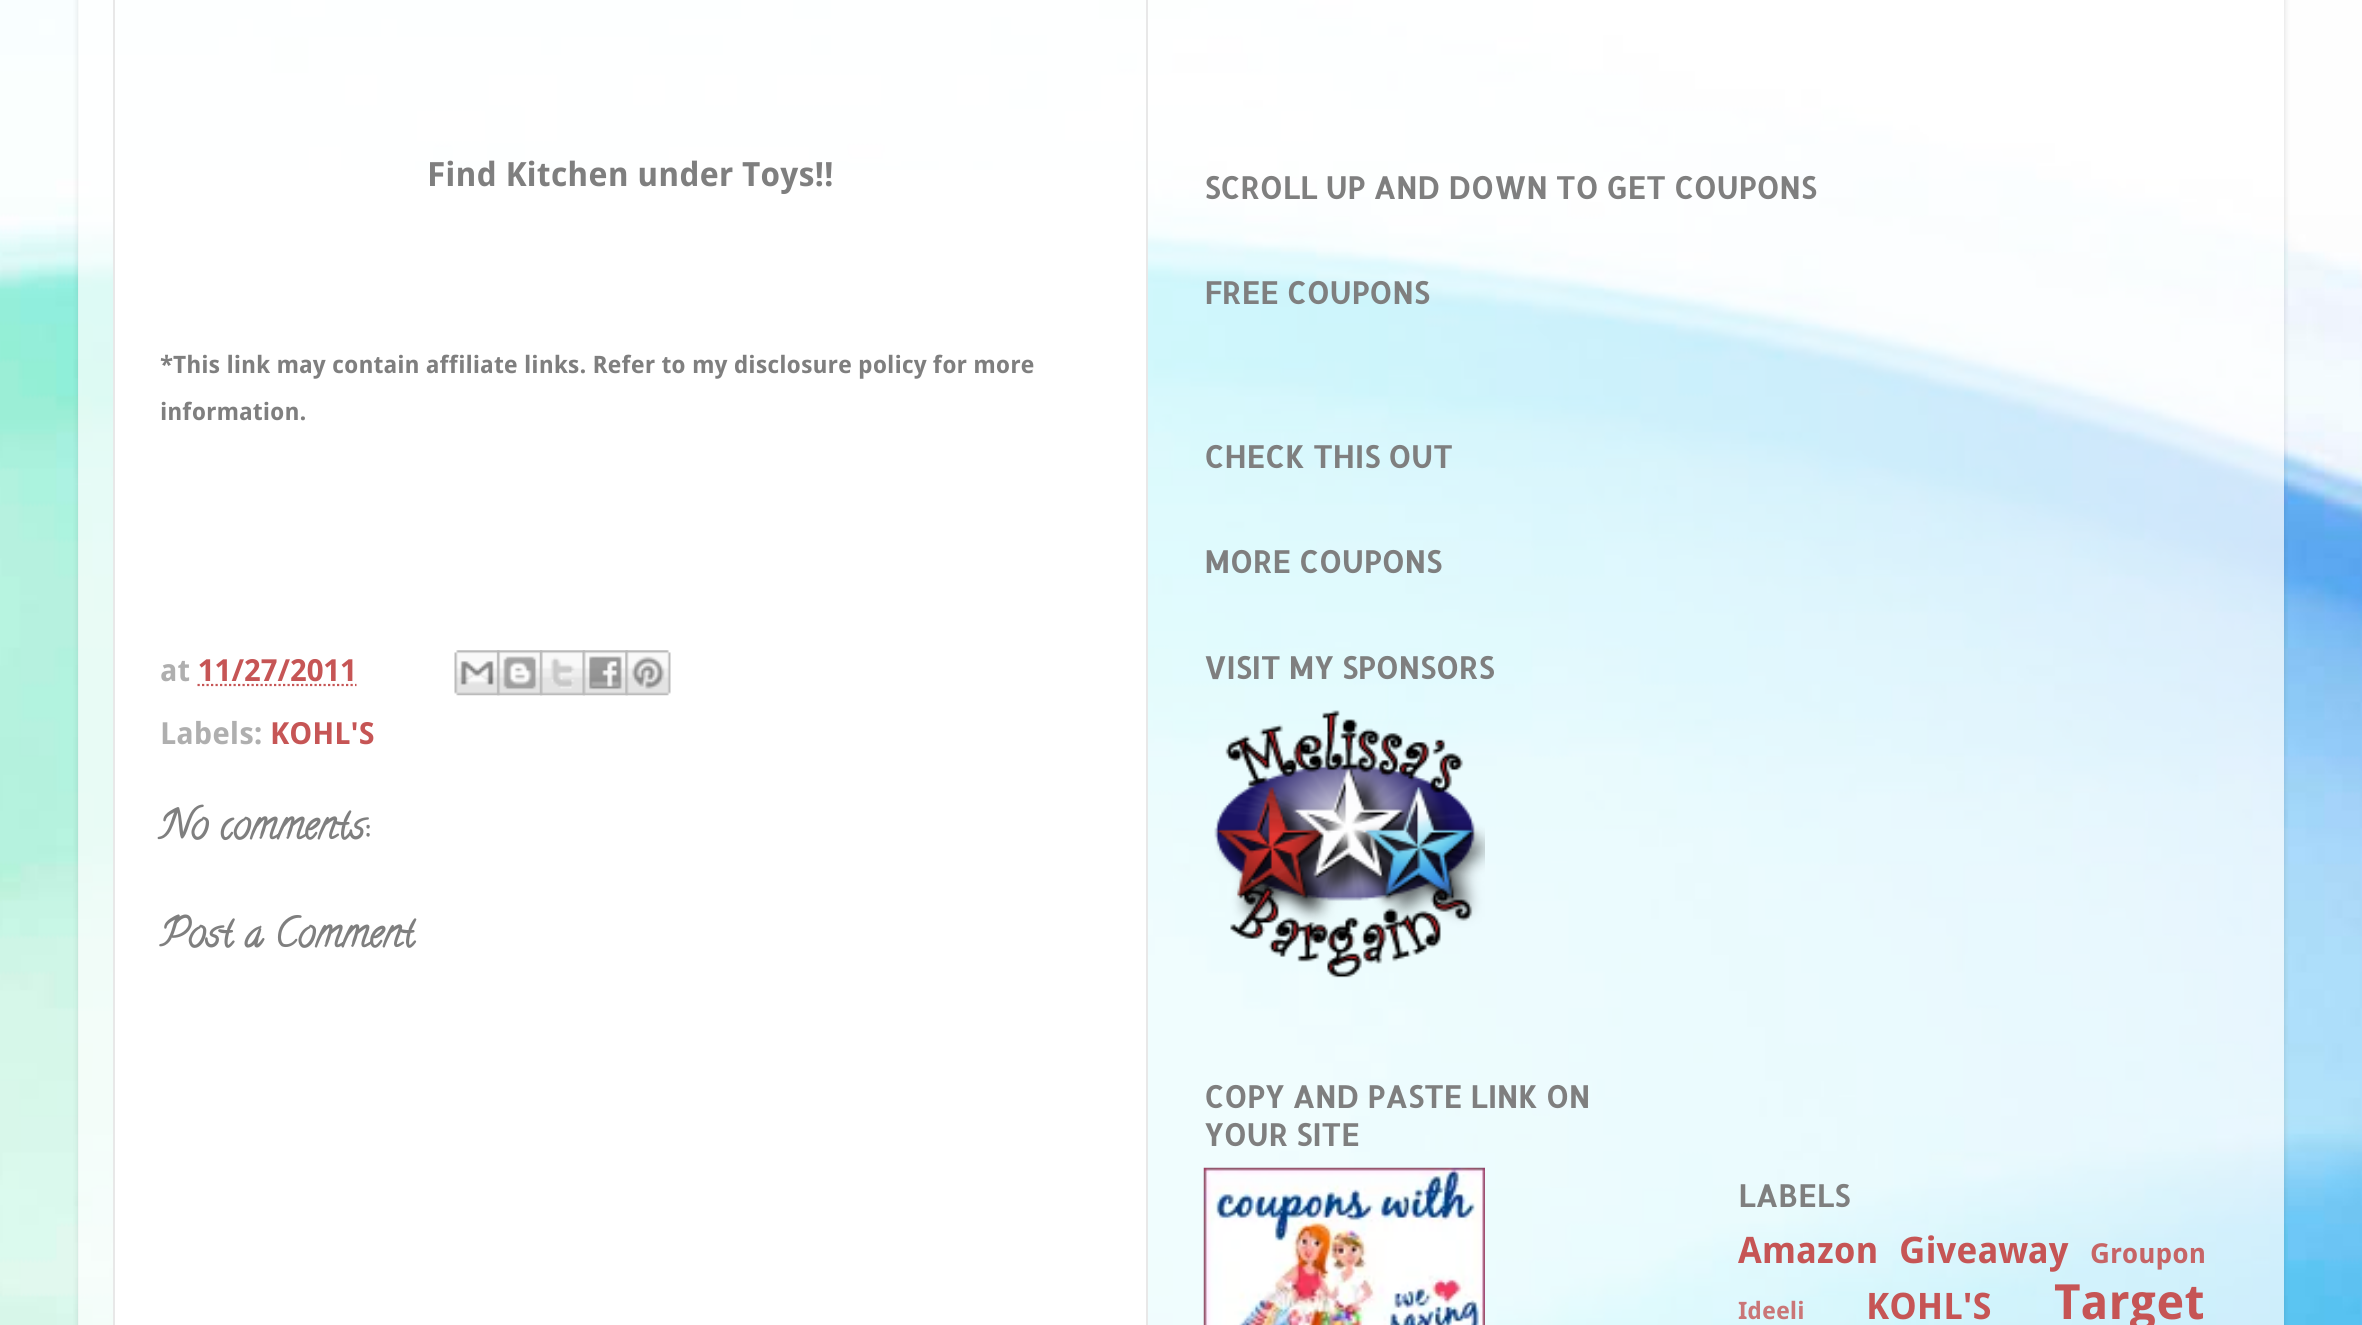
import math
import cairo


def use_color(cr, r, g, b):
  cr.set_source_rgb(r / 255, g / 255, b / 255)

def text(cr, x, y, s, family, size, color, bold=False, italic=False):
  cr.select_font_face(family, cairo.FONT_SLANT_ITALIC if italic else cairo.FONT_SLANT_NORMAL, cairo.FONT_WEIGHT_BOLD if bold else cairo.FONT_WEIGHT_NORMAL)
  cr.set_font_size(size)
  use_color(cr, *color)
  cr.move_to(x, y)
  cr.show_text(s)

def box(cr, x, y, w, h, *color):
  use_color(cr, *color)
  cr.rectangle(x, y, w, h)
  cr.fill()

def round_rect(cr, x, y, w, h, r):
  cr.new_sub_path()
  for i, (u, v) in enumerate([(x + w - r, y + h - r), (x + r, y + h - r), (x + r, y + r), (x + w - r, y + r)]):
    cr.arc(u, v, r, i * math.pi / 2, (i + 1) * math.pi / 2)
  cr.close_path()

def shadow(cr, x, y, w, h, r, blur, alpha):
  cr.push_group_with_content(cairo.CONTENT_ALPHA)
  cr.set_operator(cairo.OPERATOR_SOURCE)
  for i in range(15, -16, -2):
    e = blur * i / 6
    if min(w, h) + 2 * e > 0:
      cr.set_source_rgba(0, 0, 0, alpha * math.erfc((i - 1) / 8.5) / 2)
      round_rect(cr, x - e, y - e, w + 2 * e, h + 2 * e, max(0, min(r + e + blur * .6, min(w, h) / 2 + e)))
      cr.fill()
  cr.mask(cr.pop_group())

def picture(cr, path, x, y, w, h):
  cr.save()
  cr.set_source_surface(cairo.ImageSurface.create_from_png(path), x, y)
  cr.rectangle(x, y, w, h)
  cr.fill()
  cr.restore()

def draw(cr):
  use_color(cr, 255, 255, 255)
  cr.paint()
  picture(cr, "img_01.png", 0, 0, 2362, 1325)
  cr.save()
  cr.set_fill_rule(cairo.FILL_RULE_EVEN_ODD)
  cr.new_path()
  cr.move_to(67, 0)
  cr.line_to(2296, 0)
  cr.line_to(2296, 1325)
  cr.line_to(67, 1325)
  cr.close_path()
  cr.move_to(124, -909)
  cr.line_to(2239, -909)
  cr.curve_to(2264, -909, 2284, -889, 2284, -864)
  cr.line_to(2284, 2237)
  cr.line_to(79, 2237)
  cr.line_to(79, -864)
  cr.curve_to(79, -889, 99, -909, 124, -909)
  cr.close_path()
  cr.clip()
  use_color(cr, 0, 0, 0)
  shadow(cr, 79, -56, 2205, 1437, 45, 3.5, 0.15)
  cr.restore()
  cr.set_source_rgba(1, 1, 1, 0.7)
  cr.rectangle(78, 0, 2206, 1325)
  cr.fill()
  box(cr, 115, 170, 1031, 1155, 255, 255, 255)
  cr.rectangle(114, -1, 1033, 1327)
  use_color(cr, 232, 232, 232)
  cr.stroke()
  cr.new_path()
  cr.move_to(197.5, 685)
  cr.line_to(356.5, 685)
  use_color(cr, 198, 85, 85)
  cr.set_line_width(2.2)
  cr.set_dash([2.25, 2.25])
  cr.stroke()
  picture(cr, "img_02.png", 454, 650, 46, 46)
  picture(cr, "img_03.png", 497, 650, 46, 46)
  picture(cr, "img_04.png", 540, 650, 45, 46)
  picture(cr, "img_05.png", 582, 650, 46, 46)
  picture(cr, "img_06.png", 625, 650, 46, 46)
  picture(cr, "img_07.png", 1214, 710, 271, 268)
  picture(cr, "img_08.png", 1203, 1167, 282, 158)
  text(cr, 427, 186, "Find Kitchen under Toys!!", "Droid Sans", 33.4, (127, 127, 127), bold=True)
  text(cr, 160, 373, "*This link may contain affiliate links. Refer to my disclosure policy for more", "Droid Sans", 24, (127, 127, 127), bold=True)
  text(cr, 160, 420, "information.", "Droid Sans", 24, (127, 127, 127), bold=True)
  text(cr, 160, 681, "at", "Droid Sans", 30.4, (175, 175, 175), bold=True)
  text(cr, 198, 681, "11/27/2011", "Droid Sans", 30.4, (198, 85, 85), bold=True)
  text(cr, 160, 744, "Labels:", "Droid Sans", 30.4, (175, 175, 175), bold=True)
  text(cr, 270, 744, "KOHL'S", "Droid Sans", 30.4, (198, 85, 85), bold=True)
  text(cr, 160, 838, "No comments:", "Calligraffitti", 40.5, (127, 127, 127), bold=True)
  text(cr, 160, 946, "Post a Comment", "Calligraffitti", 40.5, (127, 127, 127), bold=True)
  text(cr, 1204, 199, "SCROLL UP AND DOWN TO GET COUPONS", "Allerta", 30.4, (127, 127, 127), bold=True)
  text(cr, 1204, 304, "FREE COUPONS", "Allerta", 30.4, (127, 127, 127), bold=True)
  text(cr, 1204, 468, "CHECK THIS OUT", "Allerta", 30.4, (127, 127, 127), bold=True)
  text(cr, 1204, 573, "MORE COUPONS", "Allerta", 30.4, (127, 127, 127), bold=True)
  text(cr, 1204, 679, "VISIT MY SPONSORS", "Allerta", 30.4, (127, 127, 127), bold=True)
  text(cr, 1204, 1108, "COPY AND PASTE LINK ON", "Allerta", 30.4, (127, 127, 127), bold=True)
  text(cr, 1204, 1146, "YOUR SITE", "Allerta", 30.4, (127, 127, 127), bold=True)
  text(cr, 1738, 1207, "LABELS", "Allerta", 30.4, (127, 127, 127), bold=True)
  text(cr, 1738, 1263, "Amazon", "Droid Sans", 36.5, (198, 85, 85), bold=True)
  text(cr, 1899, 1263, "Giveaway", "Droid Sans", 36.5, (198, 85, 85), bold=True)
  text(cr, 2090, 1263, "Groupon", "Droid Sans", 27.5, (199, 101, 102), bold=True)
  text(cr, 1738, 1319, "Ideeli", "Droid Sans", 24, (202, 118, 119), bold=True)
  text(cr, 1866, 1319, "KOHL'S", "Droid Sans", 36.5, (198, 85, 85), bold=True)
  text(cr, 2054, 1319, "Target", "Droid Sans", 48.5, (198, 85, 85), bold=True)


surface = cairo.ImageSurface(cairo.FORMAT_RGB24, 2362, 1325)
cr = cairo.Context(surface)
options = cairo.FontOptions()
options.set_hint_metrics(cairo.HINT_METRICS_OFF)
options.set_hint_style(cairo.HINT_STYLE_NONE)
cr.set_font_options(options)
cr.set_miter_limit(4)
draw(cr)
surface.write_to_png("out.png")
